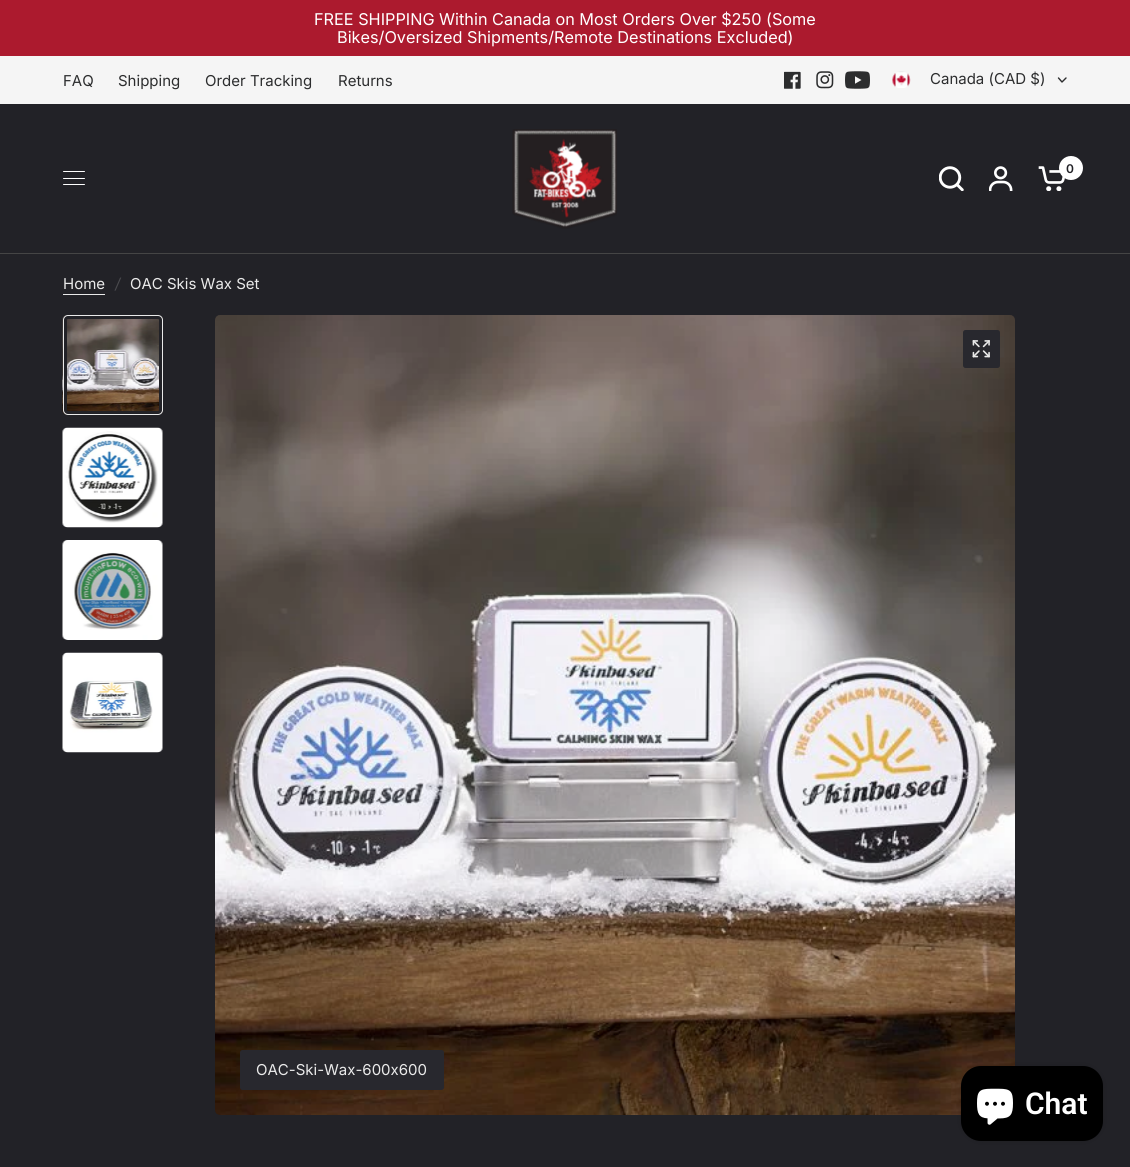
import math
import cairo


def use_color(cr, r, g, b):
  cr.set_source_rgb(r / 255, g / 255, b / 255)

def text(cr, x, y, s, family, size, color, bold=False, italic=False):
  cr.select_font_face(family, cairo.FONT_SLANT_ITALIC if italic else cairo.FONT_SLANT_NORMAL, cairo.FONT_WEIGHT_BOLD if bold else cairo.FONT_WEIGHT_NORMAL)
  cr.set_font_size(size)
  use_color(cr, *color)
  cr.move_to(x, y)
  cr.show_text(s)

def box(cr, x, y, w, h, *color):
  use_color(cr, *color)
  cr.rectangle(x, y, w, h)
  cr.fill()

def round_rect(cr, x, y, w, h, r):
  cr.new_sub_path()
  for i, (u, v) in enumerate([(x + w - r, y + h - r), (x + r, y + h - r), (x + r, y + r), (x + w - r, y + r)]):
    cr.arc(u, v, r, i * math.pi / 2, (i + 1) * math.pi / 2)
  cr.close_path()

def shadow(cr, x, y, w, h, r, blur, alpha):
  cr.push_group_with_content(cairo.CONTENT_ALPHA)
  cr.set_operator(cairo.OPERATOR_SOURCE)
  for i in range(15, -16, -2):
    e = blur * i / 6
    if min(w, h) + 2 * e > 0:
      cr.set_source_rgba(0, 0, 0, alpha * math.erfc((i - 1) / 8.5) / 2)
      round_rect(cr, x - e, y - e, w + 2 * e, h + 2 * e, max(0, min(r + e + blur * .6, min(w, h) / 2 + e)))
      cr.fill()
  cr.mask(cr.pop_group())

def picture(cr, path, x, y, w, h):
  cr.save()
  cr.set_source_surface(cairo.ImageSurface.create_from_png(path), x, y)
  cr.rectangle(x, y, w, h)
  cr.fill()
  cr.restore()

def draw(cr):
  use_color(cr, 34, 34, 39)
  cr.paint()
  box(cr, 0, 0, 1130, 56, 172, 26, 46)
  box(cr, 0, 56, 1130, 48, 245, 245, 245)
  picture(cr, "img_01.png", 784, 71, 17, 18)
  picture(cr, "img_02.png", 816, 71, 18, 18)
  picture(cr, "img_03.png", 845, 71, 25, 18)
  picture(cr, "img_04.png", 892, 71, 19, 17)
  cr.new_path()
  cr.move_to(1066, 78)
  cr.line_to(1062, 82)
  cr.line_to(1058.5, 78)
  use_color(cr, 44, 45, 46)
  cr.set_line_width(1.4)
  cr.set_line_cap(cairo.LINE_CAP_ROUND)
  cr.set_line_join(cairo.LINE_JOIN_ROUND)
  cr.stroke()
  picture(cr, "img_05.png", 512, 129, 105, 100)
  picture(cr, "img_06.png", 939, 166, 25, 25)
  picture(cr, "img_07.png", 989, 166, 24, 25)
  picture(cr, "img_08.png", 1038, 166, 27, 25)
  use_color(cr, 255, 255, 255)
  cr.arc(1071, 168, 12, 0, 2 * math.pi)
  cr.fill()
  round_rect(cr, 63, 171, 22, 1, 0.5)
  cr.fill()
  round_rect(cr, 63, 178, 22, 1, 0.5)
  cr.fill()
  round_rect(cr, 63, 184, 22, 1, 0.5)
  cr.fill()
  box(cr, 0, 253, 1130, 1, 69, 69, 69)
  box(cr, 63, 294, 42, 1, 234, 234, 234)
  picture(cr, "img_09.png", 62, 315, 101, 100)
  round_rect(cr, 65, 317, 96, 96, 3)
  use_color(cr, 34, 34, 39)
  cr.set_line_width(4)
  cr.set_line_cap(cairo.LINE_CAP_BUTT)
  cr.set_line_join(cairo.LINE_JOIN_MITER)
  cr.stroke()
  round_rect(cr, 63.5, 315.5, 99, 99, 4.5)
  use_color(cr, 234, 234, 234)
  cr.set_line_width(1)
  cr.stroke()
  picture(cr, "img_10.png", 62, 427, 101, 101)
  picture(cr, "img_11.png", 62, 540, 101, 100)
  picture(cr, "img_12.png", 62, 652, 101, 101)
  picture(cr, "img_13.png", 215, 315, 800, 800)
  use_color(cr, 40, 40, 46)
  round_rect(cr, 963, 330, 37, 38, 2.5)
  cr.fill()
  picture(cr, "img_14.png", 972, 340, 18, 18)
  round_rect(cr, 240, 1050, 204, 40, 2.5)
  cr.fill()
  use_color(cr, 0, 0, 0)
  shadow(cr, 961, 1066, 142, 75, 20, 3, 0.15)
  use_color(cr, 0, 0, 0)
  round_rect(cr, 961, 1066, 142, 75, 20)
  cr.fill()
  picture(cr, "img_15.png", 977, 1088, 36, 37)
  text(cr, 314, 25, "FREE SHIPPING Within Canada on Most Orders Over $250 (Some", "Inter", 16.25, (255, 255, 255))
  text(cr, 337, 43, "Bikes/Oversized Shipments/Remote Destinations Excluded)", "Inter", 16.25, (255, 255, 255))
  text(cr, 63, 86, "FAQ", "Inter", 15, (44, 45, 46))
  text(cr, 118, 86, "Shipping", "Inter", 15, (44, 45, 46))
  text(cr, 205, 86, "Order Tracking", "Inter", 15, (44, 45, 46))
  text(cr, 338, 86, "Returns", "Inter", 15, (44, 45, 46))
  text(cr, 930, 84, "Canada (CAD $)", "Inter", 15, (44, 45, 46))
  text(cr, 1066, 173, "0", "Inter SemiBold", 12, (34, 34, 39))
  text(cr, 63, 289, "Home", "Inter", 15, (234, 234, 234))
  text(cr, 115, 289, "/", "Inter", 15, (74, 74, 78), italic=True)
  text(cr, 130, 289, "OAC Skis Wax Set", "Inter", 15, (234, 234, 234))
  text(cr, 256, 1075, "OAC-Ski-Wax-600x600", "Inter", 15, (234, 234, 234))
  text(cr, 1025, 1114, "Chat", "Roboto SemiBold", 30, (255, 255, 255))


surface = cairo.ImageSurface(cairo.FORMAT_RGB24, 1130, 1167)
cr = cairo.Context(surface)
options = cairo.FontOptions()
options.set_hint_metrics(cairo.HINT_METRICS_OFF)
options.set_hint_style(cairo.HINT_STYLE_NONE)
cr.set_font_options(options)
cr.set_miter_limit(4)
draw(cr)
surface.write_to_png("out.png")
